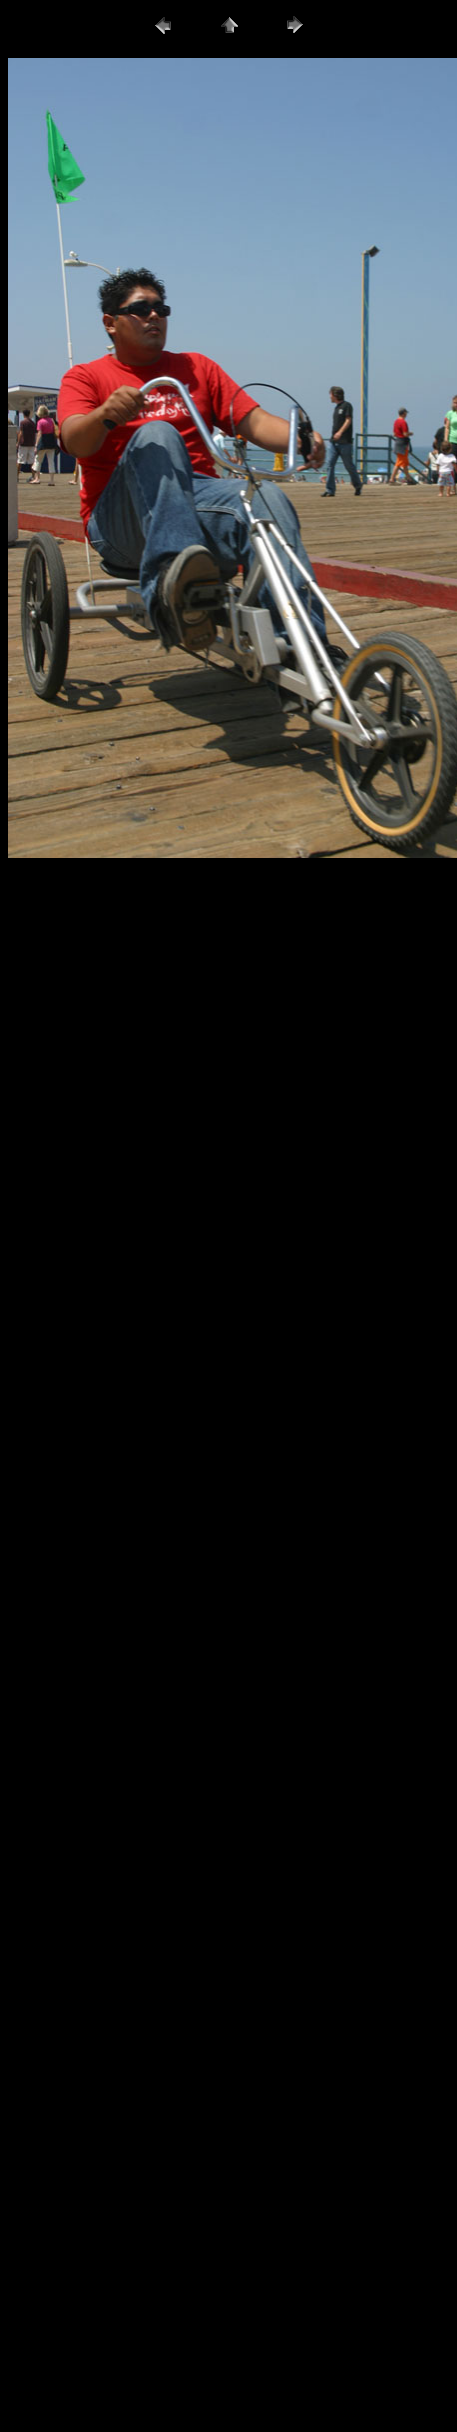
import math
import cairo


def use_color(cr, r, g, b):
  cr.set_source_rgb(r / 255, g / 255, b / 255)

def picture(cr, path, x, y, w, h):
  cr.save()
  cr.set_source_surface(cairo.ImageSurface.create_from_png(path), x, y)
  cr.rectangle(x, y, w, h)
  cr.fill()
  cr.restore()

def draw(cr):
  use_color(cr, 0, 0, 0)
  cr.paint()
  picture(cr, "img_01.png", 155, 17, 16, 17)
  picture(cr, "img_02.png", 221, 17, 17, 16)
  picture(cr, "img_03.png", 287, 16, 16, 17)
  picture(cr, "img_04.png", 8, 58, 449, 800)


surface = cairo.ImageSurface(cairo.FORMAT_RGB24, 457, 2432)
cr = cairo.Context(surface)
options = cairo.FontOptions()
options.set_hint_metrics(cairo.HINT_METRICS_OFF)
options.set_hint_style(cairo.HINT_STYLE_NONE)
cr.set_font_options(options)
cr.set_miter_limit(4)
draw(cr)
surface.write_to_png("out.png")
